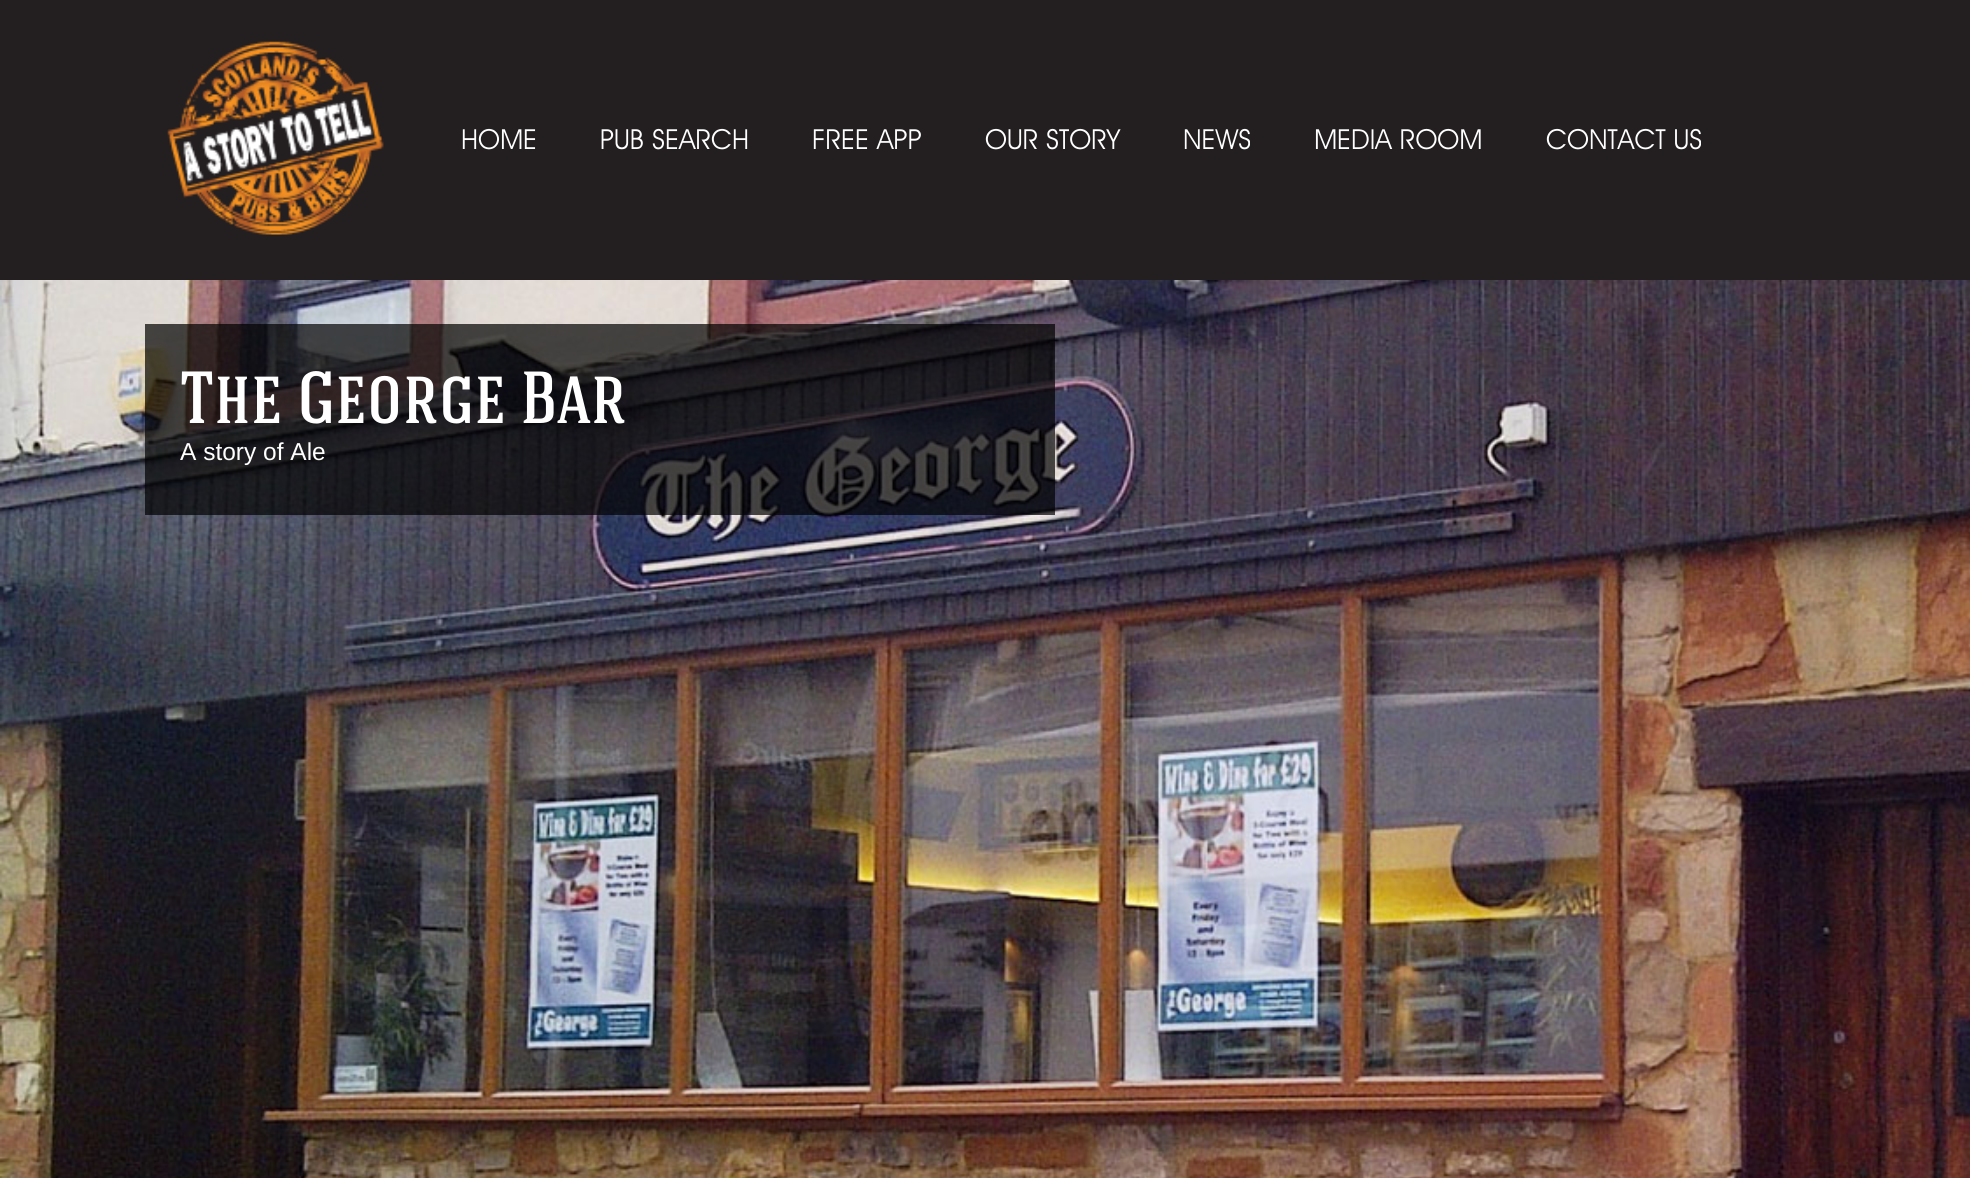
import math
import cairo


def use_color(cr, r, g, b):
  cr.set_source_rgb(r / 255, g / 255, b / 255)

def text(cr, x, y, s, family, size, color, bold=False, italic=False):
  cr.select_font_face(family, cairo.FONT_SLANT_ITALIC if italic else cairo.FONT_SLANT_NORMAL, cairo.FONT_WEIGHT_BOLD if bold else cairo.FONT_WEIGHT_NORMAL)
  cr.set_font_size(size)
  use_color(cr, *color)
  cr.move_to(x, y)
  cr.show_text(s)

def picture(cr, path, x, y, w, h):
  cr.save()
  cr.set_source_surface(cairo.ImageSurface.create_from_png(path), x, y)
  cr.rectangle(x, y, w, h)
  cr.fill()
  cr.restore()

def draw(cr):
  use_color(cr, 35, 31, 32)
  cr.paint()
  picture(cr, "img_01.png", 167, 41, 217, 194)
  picture(cr, "img_02.png", 0, 280, 1970, 898)
  cr.set_source_rgba(0, 0, 0, 0.7)
  cr.rectangle(145, 324, 910, 191)
  cr.fill()
  text(cr, 461, 149, "HOME", "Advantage", 28, (255, 255, 255))
  text(cr, 600, 149, "PUB SEARCH", "Advantage", 28, (255, 255, 255))
  text(cr, 812, 149, "FREE APP", "Advantage", 28, (255, 255, 255))
  text(cr, 985, 149, "OUR STORY", "Advantage", 28, (255, 255, 255))
  text(cr, 1183, 149, "NEWS", "Advantage", 28, (255, 255, 255))
  text(cr, 1314, 149, "MEDIA ROOM", "Advantage", 28, (255, 255, 255))
  text(cr, 1546, 149, "CONTACT US", "Advantage", 28, (255, 255, 255))
  text(cr, 180, 423, "The George Bar", "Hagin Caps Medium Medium", 73.5, (255, 255, 255))
  text(cr, 180, 460, "A story of Ale", "Liberation Sans", 24.5, (255, 255, 255))


surface = cairo.ImageSurface(cairo.FORMAT_RGB24, 1970, 1178)
cr = cairo.Context(surface)
options = cairo.FontOptions()
options.set_hint_metrics(cairo.HINT_METRICS_OFF)
options.set_hint_style(cairo.HINT_STYLE_NONE)
cr.set_font_options(options)
cr.set_miter_limit(4)
draw(cr)
surface.write_to_png("out.png")
